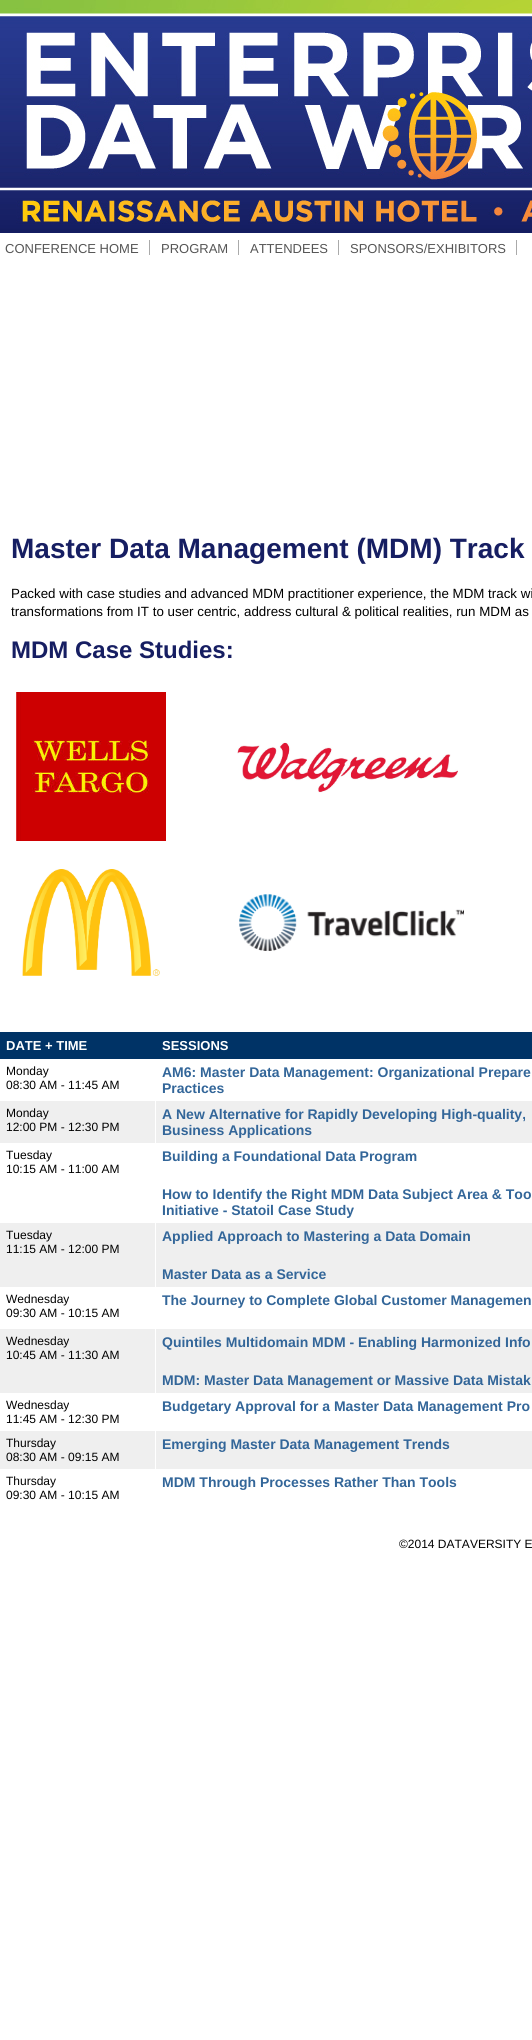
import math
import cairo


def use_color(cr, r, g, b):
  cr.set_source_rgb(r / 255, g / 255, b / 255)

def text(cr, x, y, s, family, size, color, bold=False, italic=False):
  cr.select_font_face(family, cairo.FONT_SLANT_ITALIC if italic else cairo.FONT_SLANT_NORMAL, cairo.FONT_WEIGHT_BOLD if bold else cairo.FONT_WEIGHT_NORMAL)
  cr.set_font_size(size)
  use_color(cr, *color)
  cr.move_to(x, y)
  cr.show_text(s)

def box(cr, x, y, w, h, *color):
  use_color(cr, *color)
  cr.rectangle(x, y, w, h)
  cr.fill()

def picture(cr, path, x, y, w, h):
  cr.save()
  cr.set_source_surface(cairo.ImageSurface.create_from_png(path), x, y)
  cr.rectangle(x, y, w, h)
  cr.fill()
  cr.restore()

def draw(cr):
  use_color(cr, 255, 255, 255)
  cr.paint()
  picture(cr, "img_01.png", 0, 0, 532, 233)
  box(cr, 149, 240, 1, 15, 170, 170, 170)
  box(cr, 238, 240, 1, 15, 170, 170, 170)
  box(cr, 338, 240, 1, 15, 170, 170, 170)
  box(cr, 516, 240, 1, 15, 170, 170, 170)
  picture(cr, "img_02.png", 16, 692, 150, 149)
  picture(cr, "img_03.png", 237, 742, 221, 51)
  picture(cr, "img_04.png", 22, 869, 138, 107)
  picture(cr, "img_05.png", 239, 894, 225, 57)
  box(cr, 0, 1032, 532, 27, 0, 51, 102)
  box(cr, 0, 1101, 532, 42, 239, 239, 239)
  box(cr, 155, 1101, 1, 42, 255, 255, 255)
  box(cr, 0, 1223, 532, 64, 239, 239, 239)
  box(cr, 155, 1223, 1, 64, 255, 255, 255)
  box(cr, 0, 1329, 532, 64, 239, 239, 239)
  box(cr, 155, 1329, 1, 64, 255, 255, 255)
  box(cr, 0, 1431, 532, 38, 239, 239, 239)
  box(cr, 155, 1431, 1, 38, 255, 255, 255)
  text(cr, 5, 253, "CONFERENCE HOME", "Liberation Sans", 13, (85, 85, 85))
  text(cr, 161, 253, "PROGRAM", "Liberation Sans", 13, (85, 85, 85))
  text(cr, 250, 253, "ATTENDEES", "Liberation Sans", 13, (85, 85, 85))
  text(cr, 350, 253, "SPONSORS/EXHIBITORS", "Liberation Sans", 13, (85, 85, 85))
  text(cr, 11, 558, "Master Data Management (MDM) Track", "Liberation Sans", 28, (22, 30, 98), bold=True)
  text(cr, 11, 598, "Packed with case studies and advanced MDM practitioner experience, the MDM track wi", "Liberation Sans", 13.35, (0, 0, 0))
  text(cr, 11, 616, "transformations from IT to user centric, address cultural & political realities, run MDM as", "Liberation Sans", 13.35, (0, 0, 0))
  text(cr, 11, 658, "MDM Case Studies:", "Liberation Sans", 24, (22, 30, 98), bold=True)
  text(cr, 6, 1050, "DATE + TIME", "Liberation Sans", 13, (255, 255, 255), bold=True)
  text(cr, 162, 1050, "SESSIONS", "Liberation Sans", 13, (255, 255, 255), bold=True)
  text(cr, 6, 1075, "Monday", "Liberation Sans", 12, (0, 0, 0))
  text(cr, 6, 1089, "08:30 AM - 11:45 AM", "Liberation Sans", 12, (0, 0, 0))
  text(cr, 162, 1077, "AM6: Master Data Management: Organizational Prepare", "Liberation Sans", 14, (51, 102, 153), bold=True)
  text(cr, 162, 1093, "Practices", "Liberation Sans", 14, (51, 102, 153), bold=True)
  text(cr, 6, 1117, "Monday", "Liberation Sans", 12, (0, 0, 0))
  text(cr, 6, 1131, "12:00 PM - 12:30 PM", "Liberation Sans", 12, (0, 0, 0))
  text(cr, 162, 1119, "A New Alternative for Rapidly Developing High-quality,", "Liberation Sans", 14, (51, 102, 153), bold=True)
  text(cr, 162, 1135, "Business Applications", "Liberation Sans", 14, (51, 102, 153), bold=True)
  text(cr, 6, 1159, "Tuesday", "Liberation Sans", 12, (0, 0, 0))
  text(cr, 6, 1173, "10:15 AM - 11:00 AM", "Liberation Sans", 12, (0, 0, 0))
  text(cr, 162, 1161, "Building a Foundational Data Program", "Liberation Sans", 14, (51, 102, 153), bold=True)
  text(cr, 162, 1199, "How to Identify the Right MDM Data Subject Area & Too", "Liberation Sans", 14, (51, 102, 153), bold=True)
  text(cr, 162, 1215, "Initiative - Statoil Case Study", "Liberation Sans", 14, (51, 102, 153), bold=True)
  text(cr, 6, 1239, "Tuesday", "Liberation Sans", 12, (0, 0, 0))
  text(cr, 6, 1253, "11:15 AM - 12:00 PM", "Liberation Sans", 12, (0, 0, 0))
  text(cr, 162, 1241, "Applied Approach to Mastering a Data Domain", "Liberation Sans", 14, (51, 102, 153), bold=True)
  text(cr, 162, 1279, "Master Data as a Service", "Liberation Sans", 14, (51, 102, 153), bold=True)
  text(cr, 6, 1303, "Wednesday", "Liberation Sans", 12, (0, 0, 0))
  text(cr, 6, 1317, "09:30 AM - 10:15 AM", "Liberation Sans", 12, (0, 0, 0))
  text(cr, 162, 1305, "The Journey to Complete Global Customer Managemen", "Liberation Sans", 14, (51, 102, 153), bold=True)
  text(cr, 6, 1345, "Wednesday", "Liberation Sans", 12, (0, 0, 0))
  text(cr, 6, 1359, "10:45 AM - 11:30 AM", "Liberation Sans", 12, (0, 0, 0))
  text(cr, 162, 1347, "Quintiles Multidomain MDM - Enabling Harmonized Info", "Liberation Sans", 14, (51, 102, 153), bold=True)
  text(cr, 162, 1385, "MDM: Master Data Management or Massive Data Mistak", "Liberation Sans", 14, (51, 102, 153), bold=True)
  text(cr, 6, 1409, "Wednesday", "Liberation Sans", 12, (0, 0, 0))
  text(cr, 6, 1423, "11:45 AM - 12:30 PM", "Liberation Sans", 12, (0, 0, 0))
  text(cr, 162, 1411, "Budgetary Approval for a Master Data Management Pro", "Liberation Sans", 14, (51, 102, 153), bold=True)
  text(cr, 6, 1447, "Thursday", "Liberation Sans", 12, (0, 0, 0))
  text(cr, 6, 1461, "08:30 AM - 09:15 AM", "Liberation Sans", 12, (0, 0, 0))
  text(cr, 162, 1449, "Emerging Master Data Management Trends", "Liberation Sans", 14, (51, 102, 153), bold=True)
  text(cr, 6, 1485, "Thursday", "Liberation Sans", 12, (0, 0, 0))
  text(cr, 6, 1499, "09:30 AM - 10:15 AM", "Liberation Sans", 12, (0, 0, 0))
  text(cr, 162, 1487, "MDM Through Processes Rather Than Tools", "Liberation Sans", 14, (51, 102, 153), bold=True)
  text(cr, 399, 1548, "©2014 DATAVERSITY E", "Liberation Sans", 12, (0, 0, 0))


surface = cairo.ImageSurface(cairo.FORMAT_RGB24, 532, 2040)
cr = cairo.Context(surface)
options = cairo.FontOptions()
options.set_hint_metrics(cairo.HINT_METRICS_OFF)
options.set_hint_style(cairo.HINT_STYLE_NONE)
cr.set_font_options(options)
cr.set_miter_limit(4)
draw(cr)
surface.write_to_png("out.png")
